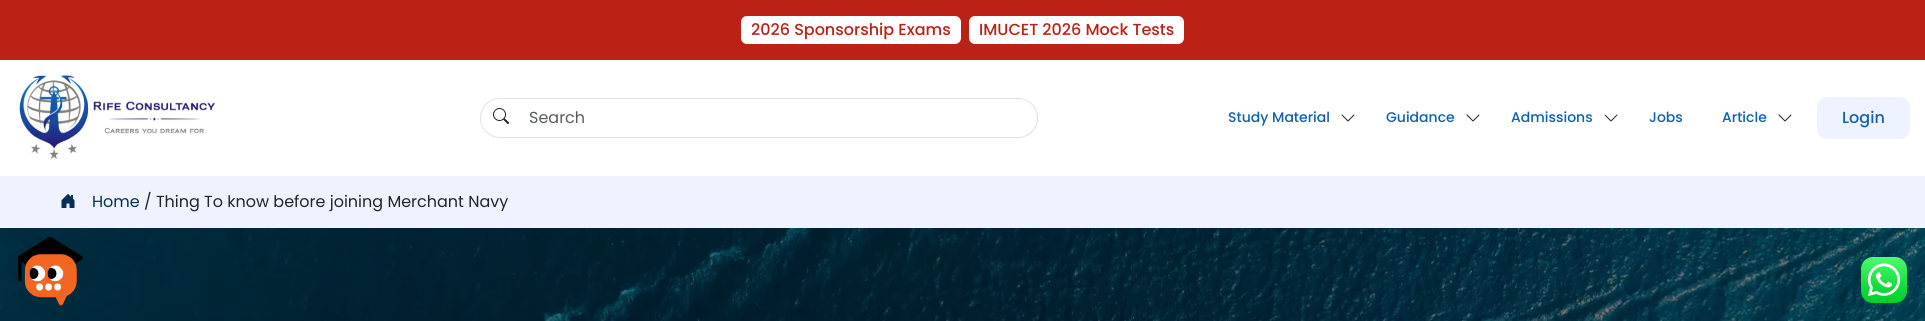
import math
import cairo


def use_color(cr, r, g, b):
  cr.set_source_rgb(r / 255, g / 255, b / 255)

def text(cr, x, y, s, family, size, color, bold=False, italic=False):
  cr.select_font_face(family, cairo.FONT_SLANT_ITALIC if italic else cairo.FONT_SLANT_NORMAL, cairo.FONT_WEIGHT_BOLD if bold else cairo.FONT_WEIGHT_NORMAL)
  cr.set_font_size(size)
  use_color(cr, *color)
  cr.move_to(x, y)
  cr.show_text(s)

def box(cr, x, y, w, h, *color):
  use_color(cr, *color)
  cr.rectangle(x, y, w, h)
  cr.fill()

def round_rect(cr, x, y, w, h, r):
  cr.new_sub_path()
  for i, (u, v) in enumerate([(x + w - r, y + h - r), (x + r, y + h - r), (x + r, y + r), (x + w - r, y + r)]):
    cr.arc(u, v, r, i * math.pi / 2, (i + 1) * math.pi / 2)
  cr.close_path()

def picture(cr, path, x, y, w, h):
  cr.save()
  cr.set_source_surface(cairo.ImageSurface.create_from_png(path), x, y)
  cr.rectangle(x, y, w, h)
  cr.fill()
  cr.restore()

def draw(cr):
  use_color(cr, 255, 255, 255)
  cr.paint()
  box(cr, 0, 0, 1925, 60, 188, 33, 24)
  use_color(cr, 255, 255, 255)
  round_rect(cr, 741, 16, 220, 28, 6)
  cr.fill()
  round_rect(cr, 969, 16, 215, 28, 6)
  cr.fill()
  picture(cr, "img_01.png", 19, 75, 196, 84)
  round_rect(cr, 480.5, 98.5, 557, 39, 19.5)
  use_color(cr, 223, 225, 227)
  cr.set_line_width(1)
  cr.stroke()
  picture(cr, "img_02.png", 493, 108, 16, 16)
  picture(cr, "img_03.png", 1341, 114, 14, 8)
  picture(cr, "img_03.png", 1466, 114, 14, 8)
  picture(cr, "img_03.png", 1604, 114, 14, 8)
  picture(cr, "img_03.png", 1778, 114, 14, 8)
  use_color(cr, 239, 243, 255)
  round_rect(cr, 1817.5, 97.5, 92, 41, 9.5)
  cr.fill_preserve()
  cr.stroke()
  box(cr, 0, 176, 1925, 52, 239, 243, 255)
  picture(cr, "img_04.png", 61, 194, 14, 14)
  picture(cr, "img_05.png", 0, 228, 1925, 93)
  picture(cr, "img_06.png", 17, 236, 66, 70)
  picture(cr, "img_07.png", 1861, 257, 46, 46)
  text(cr, 751, 35, "2026 Sponsorship Exams", "Poppins Medium", 16, (188, 33, 24))
  text(cr, 979, 35, "IMUCET 2026 Mock Tests", "Poppins Medium", 16, (188, 33, 24))
  text(cr, 529, 123, "Search", "Poppins", 16, (89, 92, 95))
  text(cr, 1228, 122, "Study Material", "Poppins Medium", 14, (16, 96, 177))
  text(cr, 1386, 122, "Guidance", "Poppins Medium", 14, (16, 96, 177))
  text(cr, 1511, 122, "Admissions", "Poppins Medium", 14, (16, 96, 177))
  text(cr, 1649, 122, "Jobs", "Poppins Medium", 14, (16, 96, 177))
  text(cr, 1722, 122, "Article", "Poppins Medium", 14, (16, 96, 177))
  text(cr, 1842, 123, "Login", "Poppins Medium", 16, (16, 96, 177))
  text(cr, 92, 207, "Home", "Poppins", 16, (7, 46, 86))
  text(cr, 144, 207, "/ Thing To know before joining Merchant Navy", "Poppins", 16, (33, 37, 41))


surface = cairo.ImageSurface(cairo.FORMAT_RGB24, 1925, 321)
cr = cairo.Context(surface)
options = cairo.FontOptions()
options.set_hint_metrics(cairo.HINT_METRICS_OFF)
options.set_hint_style(cairo.HINT_STYLE_NONE)
cr.set_font_options(options)
cr.set_miter_limit(4)
draw(cr)
surface.write_to_png("out.png")
